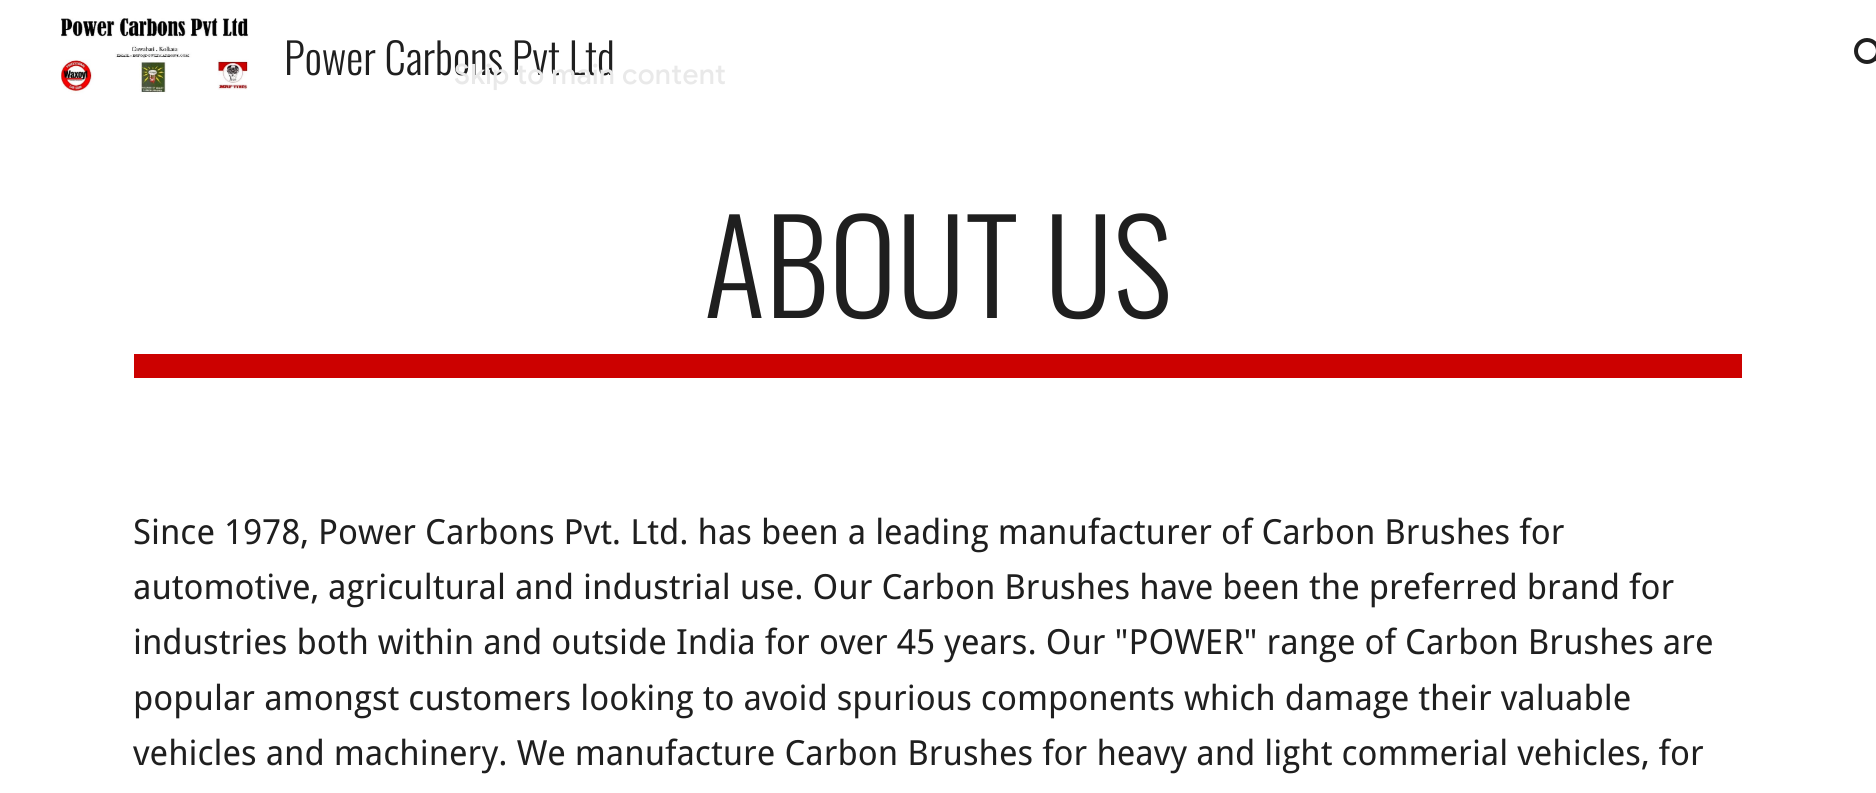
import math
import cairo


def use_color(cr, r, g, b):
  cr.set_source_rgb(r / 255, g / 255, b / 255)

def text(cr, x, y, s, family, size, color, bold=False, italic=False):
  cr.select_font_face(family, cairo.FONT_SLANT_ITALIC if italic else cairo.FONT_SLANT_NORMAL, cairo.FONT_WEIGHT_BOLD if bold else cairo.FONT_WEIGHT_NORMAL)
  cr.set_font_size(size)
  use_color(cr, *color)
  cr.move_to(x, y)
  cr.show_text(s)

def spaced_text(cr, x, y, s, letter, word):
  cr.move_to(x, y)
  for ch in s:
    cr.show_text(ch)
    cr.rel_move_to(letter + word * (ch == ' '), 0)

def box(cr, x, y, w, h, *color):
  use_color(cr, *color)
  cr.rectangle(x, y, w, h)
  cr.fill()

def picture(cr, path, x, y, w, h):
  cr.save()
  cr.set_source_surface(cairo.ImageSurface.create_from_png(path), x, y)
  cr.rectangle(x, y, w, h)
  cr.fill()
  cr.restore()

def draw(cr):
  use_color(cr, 255, 255, 255)
  cr.paint()
  picture(cr, "img_01.png", 61, 18, 188, 76)
  picture(cr, "img_02.png", 1854, 38, 22, 26)
  box(cr, 134, 354, 1608, 24, 204, 1, 0)
  text(cr, 284, 75, "Power Carbons Pvt Ltd", "Oswald Light", 42.75, (31, 31, 31))
  text(cr, 704, 318, "ABOUT US", "Oswald Light", 128, (31, 31, 31))
  text(cr, 133, 544, "Since 1978, Power Carbons Pvt. Ltd. has been a leading manufacturer of Carbon Brushes for", "Droid Sans", 34.65, (31, 31, 31))
  text(cr, 133, 599, "automotive, agricultural and industrial use. Our Carbon Brushes have been the preferred brand for", "Droid Sans", 34.65, (31, 31, 31))
  text(cr, 133, 654, "industries both within and outside India for over 45 years. Our \"POWER\" range of Carbon Brushes are", "Droid Sans", 34.65, (31, 31, 31))
  text(cr, 133, 710, "popular amongst customers looking to avoid spurious components which damage their valuable", "Droid Sans", 34.65, (31, 31, 31))
  text(cr, 133, 765, "vehicles and machinery. We manufacture Carbon Brushes for heavy and light commerial vehicles, for", "Droid Sans", 34.65, (31, 31, 31))
  cr.select_font_face("Google Sans Medium")
  cr.set_font_size(28)
  use_color(cr, 233, 233, 233)
  spaced_text(cr, 454, 84, "Skip to main content", 0.25, 0)


surface = cairo.ImageSurface(cairo.FORMAT_RGB24, 1876, 793)
cr = cairo.Context(surface)
options = cairo.FontOptions()
options.set_hint_metrics(cairo.HINT_METRICS_OFF)
options.set_hint_style(cairo.HINT_STYLE_NONE)
cr.set_font_options(options)
cr.set_miter_limit(4)
draw(cr)
surface.write_to_png("out.png")
